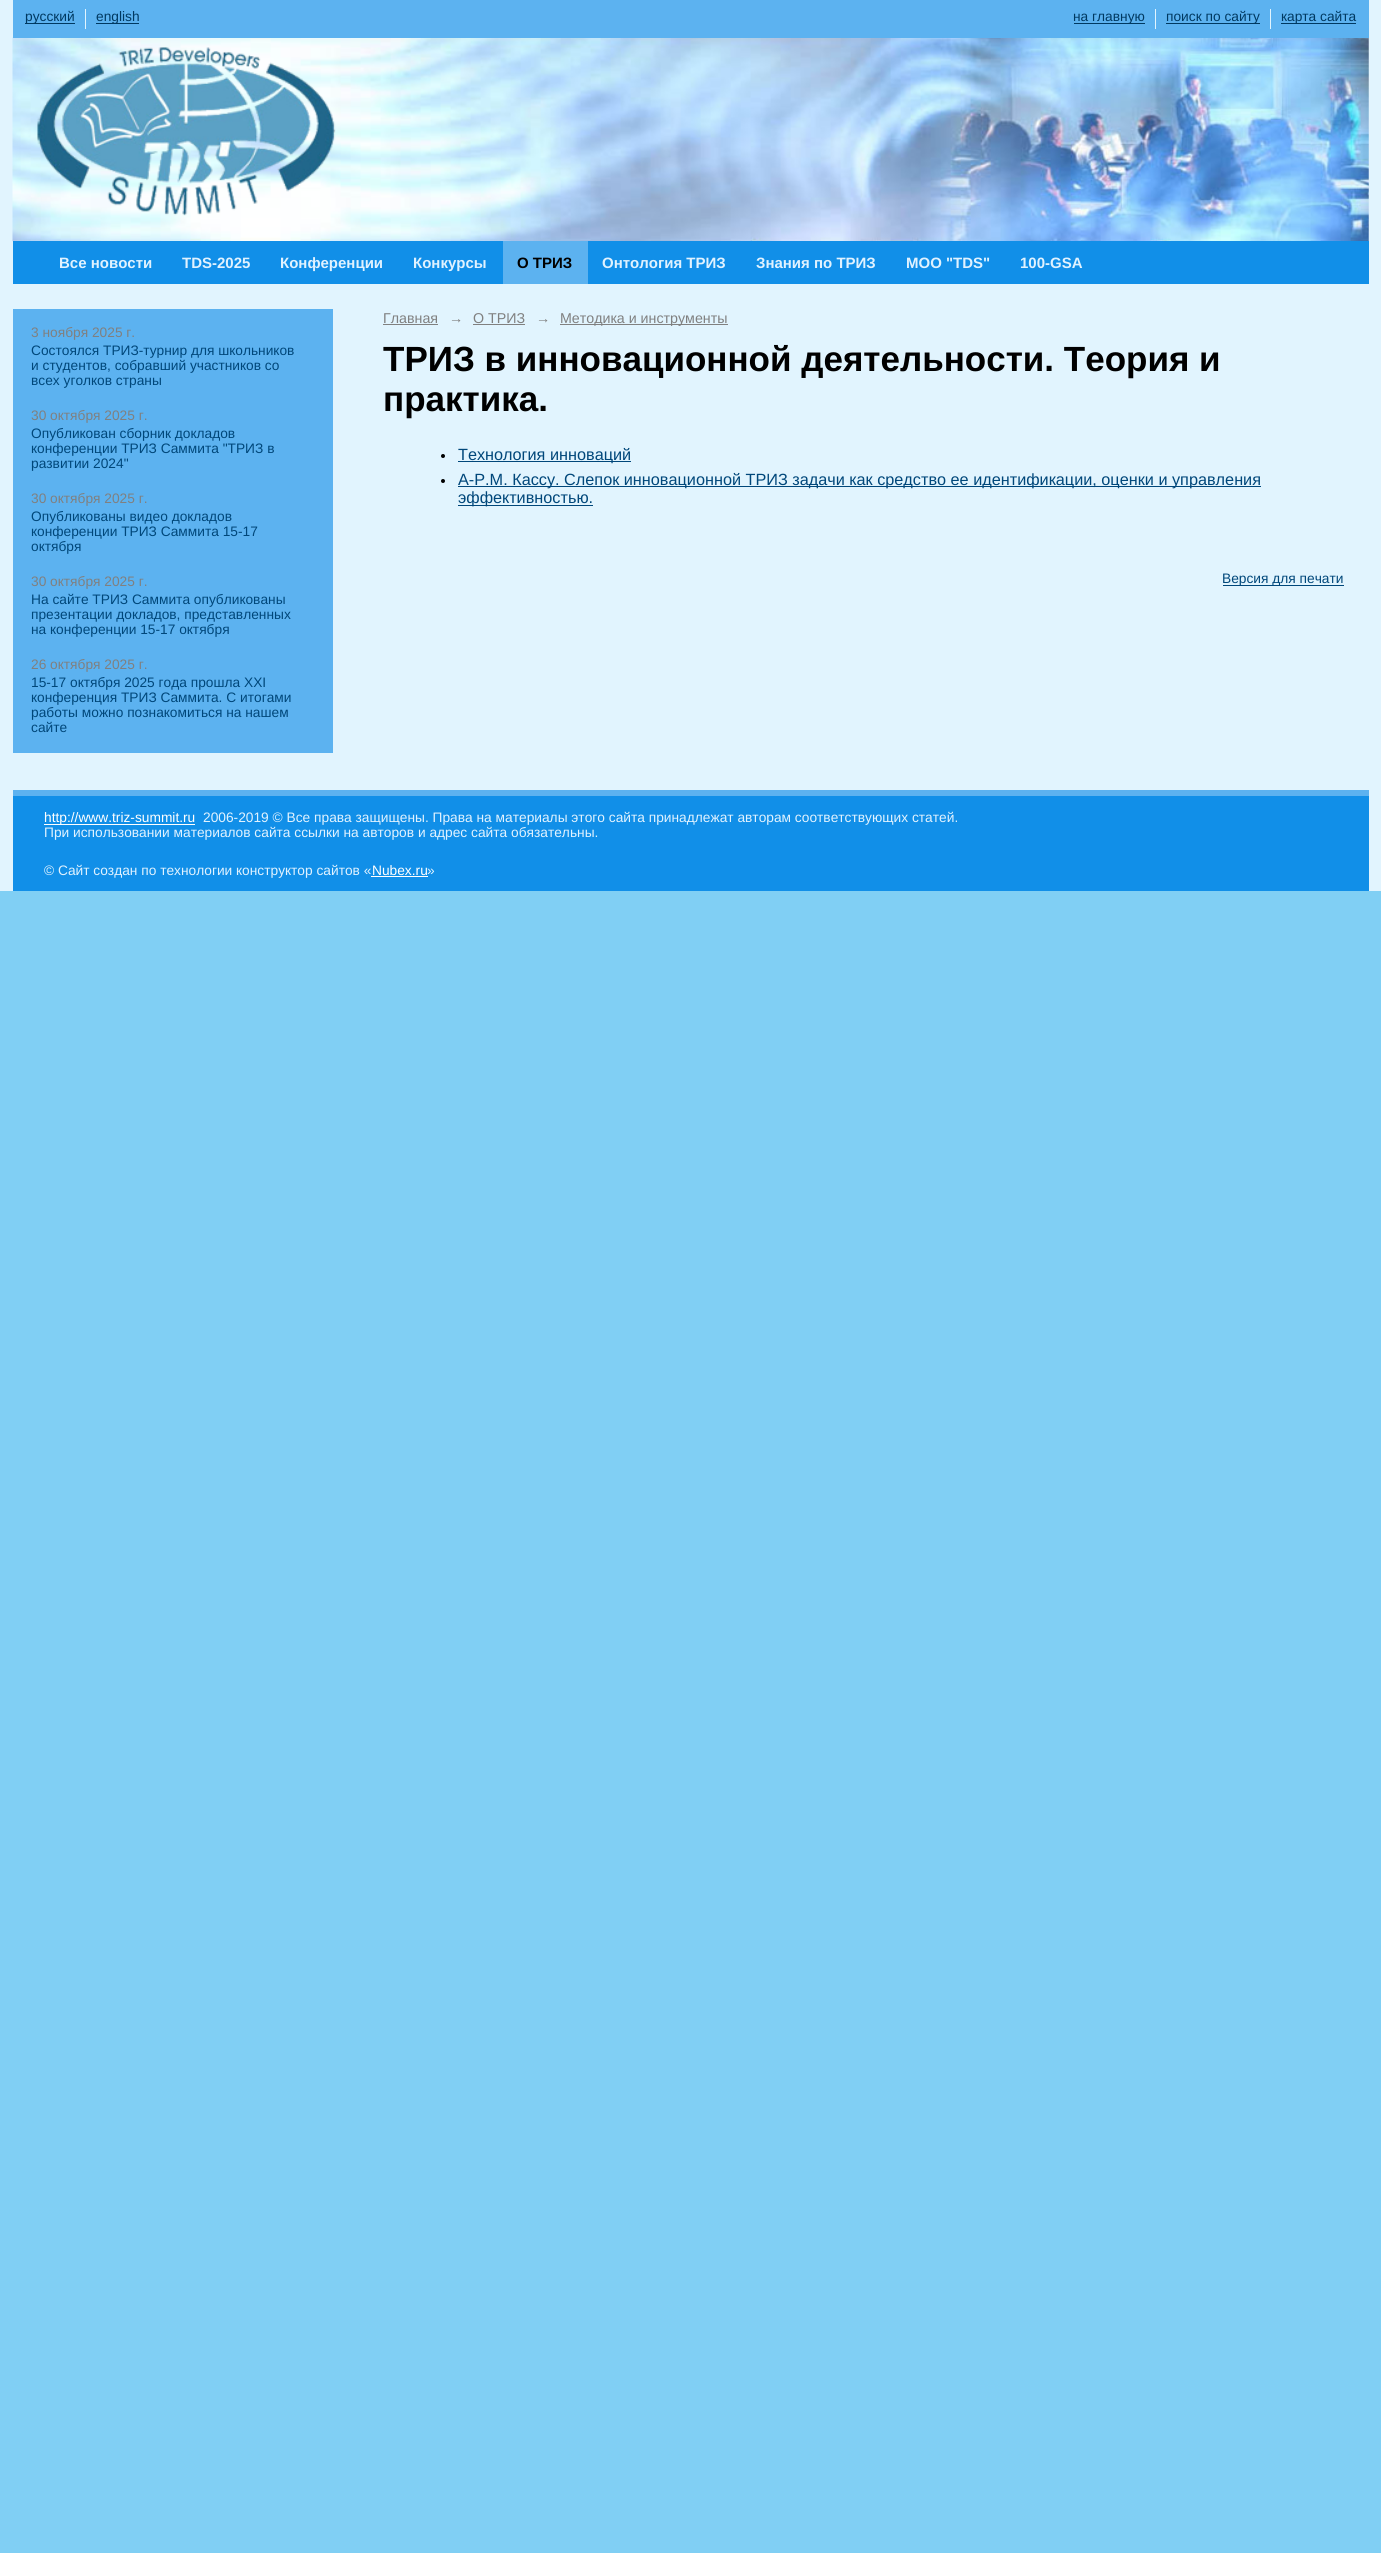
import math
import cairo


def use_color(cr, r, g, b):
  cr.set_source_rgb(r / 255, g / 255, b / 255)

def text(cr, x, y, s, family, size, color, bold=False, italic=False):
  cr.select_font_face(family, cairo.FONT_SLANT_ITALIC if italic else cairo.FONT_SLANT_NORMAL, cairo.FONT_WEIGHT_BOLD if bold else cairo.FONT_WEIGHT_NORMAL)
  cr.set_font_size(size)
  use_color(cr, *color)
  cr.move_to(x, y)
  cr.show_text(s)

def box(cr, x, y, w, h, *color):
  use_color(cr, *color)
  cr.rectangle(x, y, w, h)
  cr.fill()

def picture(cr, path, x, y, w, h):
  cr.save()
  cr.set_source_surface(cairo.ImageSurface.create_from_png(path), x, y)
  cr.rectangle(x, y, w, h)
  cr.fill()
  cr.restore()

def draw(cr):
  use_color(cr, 128, 207, 244)
  cr.paint()
  box(cr, 0, 0, 1381, 891, 225, 244, 254)
  picture(cr, "img_01.png", 12, 37, 1357, 205)
  box(cr, 13, 0, 1356, 38, 92, 178, 240)
  box(cr, 25, 23, 50, 1, 0, 57, 97)
  box(cr, 85, 9, 1, 20, 225, 244, 254)
  box(cr, 96, 23, 43, 1, 0, 57, 97)
  box(cr, 1074, 23, 71, 1, 0, 57, 97)
  box(cr, 1155, 9, 1, 20, 225, 244, 254)
  box(cr, 1166, 23, 94, 1, 0, 57, 97)
  box(cr, 1270, 9, 1, 20, 225, 244, 254)
  box(cr, 1281, 23, 75, 1, 0, 57, 97)
  picture(cr, "img_02.png", 37, 47, 299, 169)
  box(cr, 13, 241, 1356, 43, 17, 143, 232)
  box(cr, 503, 241, 85, 43, 92, 178, 240)
  box(cr, 13, 309, 320, 444, 92, 178, 240)
  box(cr, 383, 324, 55, 1, 128, 128, 128)
  box(cr, 473, 324, 52, 1, 128, 128, 128)
  box(cr, 560, 324, 168, 1, 128, 128, 128)
  use_color(cr, 0, 0, 0)
  cr.arc(443, 456, 2, 0, 2 * math.pi)
  cr.fill()
  box(cr, 458, 461, 173, 1, 0, 71, 122)
  use_color(cr, 0, 0, 0)
  cr.arc(443, 481, 2, 0, 2 * math.pi)
  cr.fill()
  box(cr, 458, 486, 803, 1, 0, 71, 122)
  box(cr, 458, 505, 135, 1, 0, 71, 122)
  box(cr, 1223, 585, 121, 1, 0, 71, 122)
  box(cr, 13, 796, 1356, 95, 17, 143, 232)
  box(cr, 13, 790, 1356, 6, 92, 178, 240)
  box(cr, 44, 824, 151, 1, 255, 255, 255)
  box(cr, 371, 876, 57, 1, 255, 255, 255)
  text(cr, 25, 21, "русский", "Liberation Sans", 13.75, (0, 57, 97))
  text(cr, 96, 21, "english", "Liberation Sans", 13.75, (0, 57, 97))
  text(cr, 1073, 21, "на главную", "Liberation Sans", 13.75, (0, 57, 97))
  text(cr, 1166, 21, "поиск по сайту", "Liberation Sans", 13.75, (0, 57, 97))
  text(cr, 1281, 21, "карта сайта", "Liberation Sans", 13.75, (0, 57, 97))
  text(cr, 59, 268, "Все новости", "Liberation Sans", 15, (224, 242, 255), bold=True)
  text(cr, 182, 268, "TDS-2025", "Liberation Sans", 15, (224, 242, 255), bold=True)
  text(cr, 280, 268, "Конференции", "Liberation Sans", 15, (224, 242, 255), bold=True)
  text(cr, 413, 268, "Конкурсы", "Liberation Sans", 15, (224, 242, 255), bold=True)
  text(cr, 517, 268, "О ТРИЗ", "Liberation Sans", 15, (0, 0, 0), bold=True)
  text(cr, 602, 268, "Онтология ТРИЗ", "Liberation Sans", 15, (224, 242, 255), bold=True)
  text(cr, 756, 268, "Знания по ТРИЗ", "Liberation Sans", 15, (224, 242, 255), bold=True)
  text(cr, 906, 268, "МОО \"TDS\"", "Liberation Sans", 15, (224, 242, 255), bold=True)
  text(cr, 1020, 268, "100-GSA", "Liberation Sans", 15, (224, 242, 255), bold=True)
  text(cr, 31, 337, "3 ноября 2025 г.", "Liberation Sans", 13.75, (128, 128, 128))
  text(cr, 31, 355, "Состоялся ТРИЗ-турнир для школьников", "Liberation Sans", 13.75, (0, 71, 122))
  text(cr, 31, 370, "и студентов, собравший участников со", "Liberation Sans", 13.75, (0, 71, 122))
  text(cr, 31, 385, "всех уголков страны", "Liberation Sans", 13.75, (0, 71, 122))
  text(cr, 31, 420, "30 октября 2025 г.", "Liberation Sans", 13.75, (128, 128, 128))
  text(cr, 31, 438, "Опубликован сборник докладов", "Liberation Sans", 13.75, (0, 71, 122))
  text(cr, 31, 453, "конференции ТРИЗ Саммита \"ТРИЗ в", "Liberation Sans", 13.75, (0, 71, 122))
  text(cr, 31, 468, "развитии 2024\"", "Liberation Sans", 13.75, (0, 71, 122))
  text(cr, 31, 503, "30 октября 2025 г.", "Liberation Sans", 13.75, (128, 128, 128))
  text(cr, 31, 521, "Опубликованы видео докладов", "Liberation Sans", 13.75, (0, 71, 122))
  text(cr, 31, 536, "конференции ТРИЗ Саммита 15-17", "Liberation Sans", 13.75, (0, 71, 122))
  text(cr, 31, 551, "октября", "Liberation Sans", 13.75, (0, 71, 122))
  text(cr, 31, 586, "30 октября 2025 г.", "Liberation Sans", 13.75, (128, 128, 128))
  text(cr, 31, 604, "На сайте ТРИЗ Саммита опубликованы", "Liberation Sans", 13.75, (0, 71, 122))
  text(cr, 31, 619, "презентации докладов, представленных", "Liberation Sans", 13.75, (0, 71, 122))
  text(cr, 31, 634, "на конференции 15-17 октября", "Liberation Sans", 13.75, (0, 71, 122))
  text(cr, 31, 669, "26 октября 2025 г.", "Liberation Sans", 13.75, (128, 128, 128))
  text(cr, 31, 687, "15-17 октября 2025 года прошла XXI", "Liberation Sans", 13.75, (0, 71, 122))
  text(cr, 31, 702, "конференция ТРИЗ Саммита. С итогами", "Liberation Sans", 13.75, (0, 71, 122))
  text(cr, 31, 717, "работы можно познакомиться на нашем", "Liberation Sans", 13.75, (0, 71, 122))
  text(cr, 31, 732, "сайте", "Liberation Sans", 13.75, (0, 71, 122))
  text(cr, 383, 323, "Главная", "Liberation Sans", 14.25, (128, 128, 128))
  text(cr, 449, 323, "→", "Liberation Sans", 14.25, (128, 128, 128), italic=True)
  text(cr, 473, 323, "О ТРИЗ", "Liberation Sans", 14.25, (128, 128, 128))
  text(cr, 536, 323, "→", "Liberation Sans", 14.25, (128, 128, 128), italic=True)
  text(cr, 560, 323, "Методика и инструменты", "Liberation Sans", 14.25, (128, 128, 128))
  text(cr, 383, 371, "ТРИЗ в инновационной деятельности. Теория и", "Liberation Sans", 35, (0, 0, 0), bold=True)
  text(cr, 383, 411, "практика.", "Liberation Sans", 35, (0, 0, 0), bold=True)
  text(cr, 458, 460, "Технология инноваций", "Liberation Sans", 16.25, (0, 71, 122))
  text(cr, 458, 485, "А-Р.М. Кассу. Слепок инновационной ТРИЗ задачи как средство ее идентификации, оценки и управления", "Liberation Sans", 16.25, (0, 71, 122))
  text(cr, 458, 503, "эффективностью.", "Liberation Sans", 16.25, (0, 71, 122))
  text(cr, 1222, 583, "Версия для печати", "Liberation Sans", 13.75, (0, 71, 122))
  text(cr, 44, 822, "http://www.triz-summit.ru", "Liberation Sans", 13.75, (255, 255, 255))
  text(cr, 203, 822, "2006-2019 © Все права защищены. Права на материалы этого сайта принадлежат авторам соответствующих статей.", "Liberation Sans", 13.75, (224, 242, 255))
  text(cr, 44, 837, "При использовании материалов сайта ссылки на авторов и адрес сайта обязательны.", "Liberation Sans", 13.75, (224, 242, 255))
  text(cr, 44, 875, "© Сайт создан по технологии конструктор сайтов «", "Liberation Sans", 13.75, (224, 242, 255))
  text(cr, 372, 875, "Nubex.ru", "Liberation Sans", 13.75, (255, 255, 255))
  text(cr, 427, 875, "»", "Liberation Sans", 13.75, (224, 242, 255))


surface = cairo.ImageSurface(cairo.FORMAT_RGB24, 1381, 2553)
cr = cairo.Context(surface)
options = cairo.FontOptions()
options.set_hint_metrics(cairo.HINT_METRICS_OFF)
options.set_hint_style(cairo.HINT_STYLE_NONE)
cr.set_font_options(options)
cr.set_miter_limit(4)
draw(cr)
surface.write_to_png("out.png")
